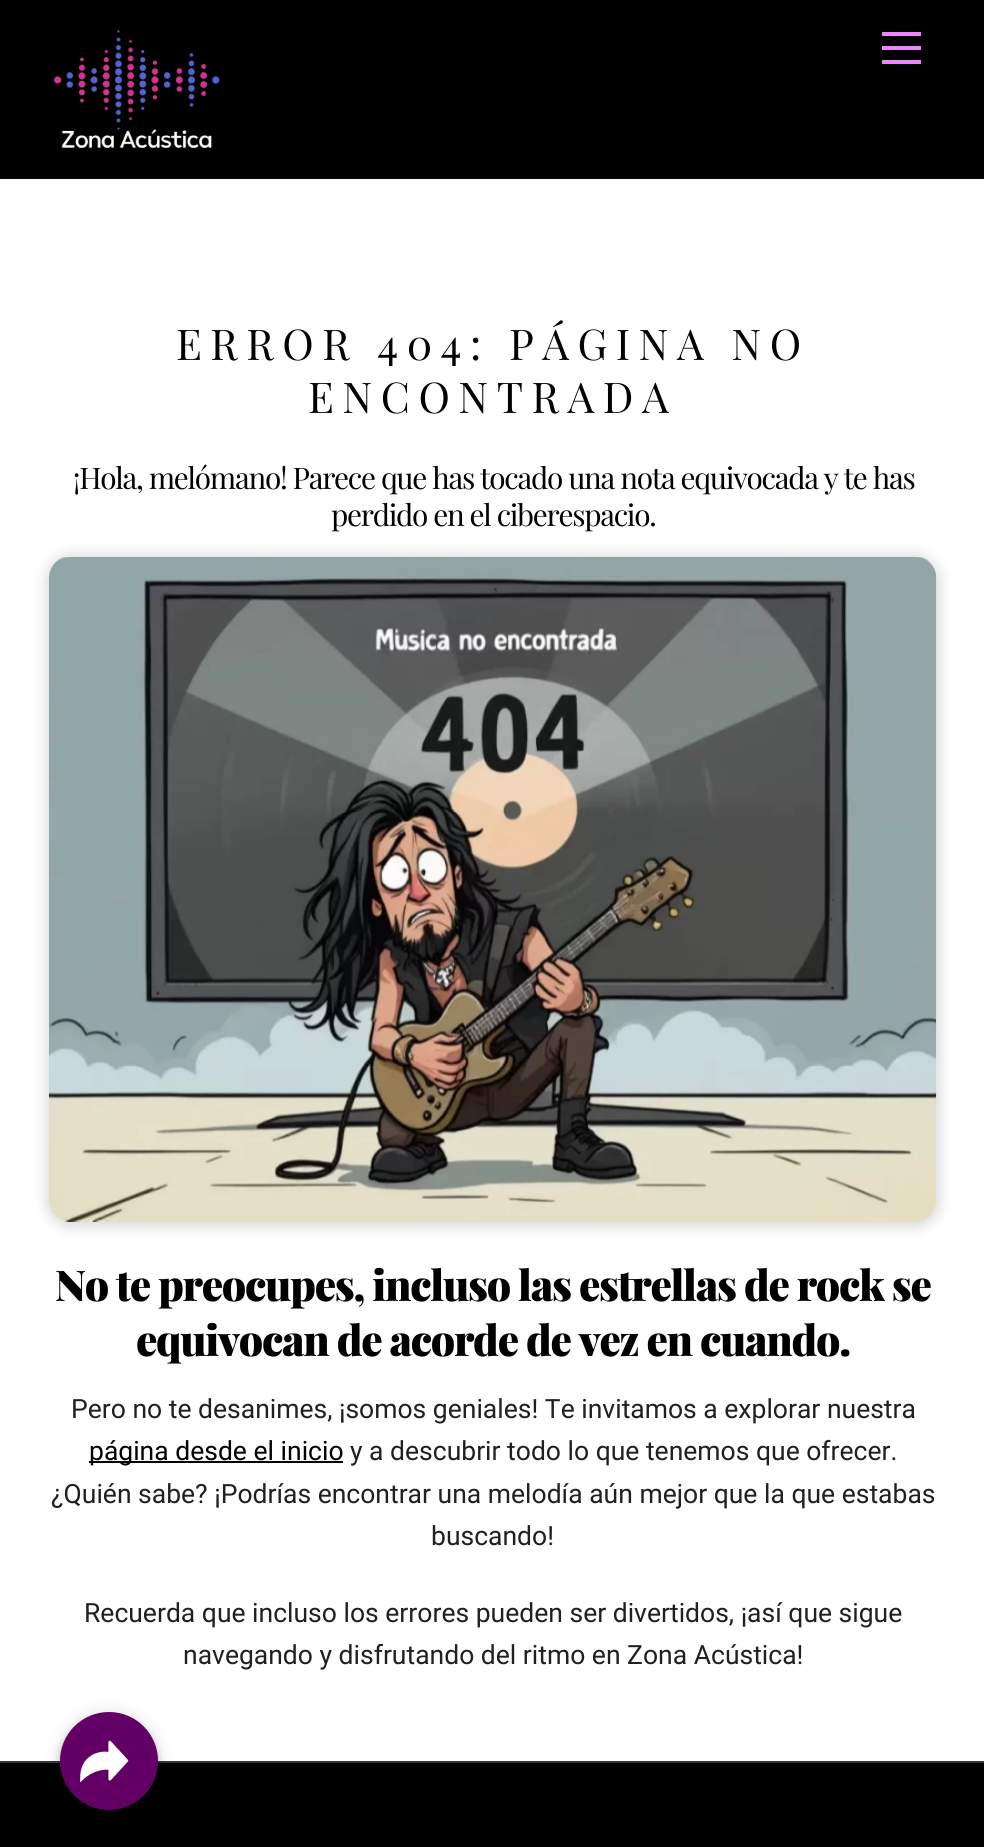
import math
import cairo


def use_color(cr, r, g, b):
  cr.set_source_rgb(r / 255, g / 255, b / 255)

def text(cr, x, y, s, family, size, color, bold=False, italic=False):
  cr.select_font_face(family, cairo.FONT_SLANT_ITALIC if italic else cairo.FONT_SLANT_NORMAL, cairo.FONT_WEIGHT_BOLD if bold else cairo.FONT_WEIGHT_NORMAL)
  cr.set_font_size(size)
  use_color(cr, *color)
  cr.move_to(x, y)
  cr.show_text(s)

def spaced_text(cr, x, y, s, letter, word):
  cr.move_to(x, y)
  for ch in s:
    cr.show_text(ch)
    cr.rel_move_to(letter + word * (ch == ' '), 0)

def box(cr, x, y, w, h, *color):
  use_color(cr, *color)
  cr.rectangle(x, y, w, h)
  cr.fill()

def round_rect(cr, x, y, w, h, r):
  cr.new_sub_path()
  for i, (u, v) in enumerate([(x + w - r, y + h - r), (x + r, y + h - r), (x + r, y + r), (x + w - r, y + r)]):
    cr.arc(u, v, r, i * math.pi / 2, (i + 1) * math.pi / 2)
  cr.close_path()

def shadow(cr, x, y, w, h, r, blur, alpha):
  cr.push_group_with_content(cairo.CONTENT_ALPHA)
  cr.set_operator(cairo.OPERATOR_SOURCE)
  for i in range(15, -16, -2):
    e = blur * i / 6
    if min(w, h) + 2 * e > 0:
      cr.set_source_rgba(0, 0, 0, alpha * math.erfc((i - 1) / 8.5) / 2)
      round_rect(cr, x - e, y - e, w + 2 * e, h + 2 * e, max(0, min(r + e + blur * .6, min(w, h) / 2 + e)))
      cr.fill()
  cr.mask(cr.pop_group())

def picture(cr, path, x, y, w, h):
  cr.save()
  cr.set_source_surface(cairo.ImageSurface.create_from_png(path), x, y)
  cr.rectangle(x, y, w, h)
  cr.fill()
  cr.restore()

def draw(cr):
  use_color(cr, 255, 255, 255)
  cr.paint()
  box(cr, 0, 0, 984, 179, 0, 0, 0)
  picture(cr, "img_01.png", 53, 30, 167, 118)
  box(cr, 882, 60, 39, 4, 237, 133, 255)
  box(cr, 882, 32, 39, 4, 237, 133, 255)
  box(cr, 882, 46, 39, 4, 237, 133, 255)
  use_color(cr, 0, 0, 0)
  shadow(cr, 46, 555, 894, 672, 25, 7, 0.15)
  picture(cr, "img_02.png", 49, 557, 888, 665)
  box(cr, 89, 1461, 254, 2, 0, 0, 0)
  box(cr, 0, 1763, 984, 84, 0, 0, 0)
  box(cr, 0, 1761, 984, 2, 54, 54, 54)
  use_color(cr, 0, 0, 0)
  shadow(cr, 60, 1713, 98, 98, 49, 9, 0.12)
  shadow(cr, 60, 1719, 98, 98, 49, 4.5, 0.14)
  shadow(cr, 61, 1717, 95, 94, 47, 3.5, 0.2)
  use_color(cr, 98, 0, 102)
  cr.arc(109, 1761, 49, 0, 2 * math.pi)
  cr.fill()
  picture(cr, "img_03.png", 80, 1740, 49, 42)
  cr.select_font_face("Playfair Display")
  cr.set_font_size(42.4)
  use_color(cr, 0, 0, 0)
  spaced_text(cr, 176, 360, "ERROR 404: PÁGINA NO", 8.5, 0)
  spaced_text(cr, 308, 413, "ENCONTRADA", 8.5, 0)
  cr.set_font_size(29.7)
  spaced_text(cr, 73, 489, "¡Hola, melómano! Parece que has tocado una nota equivocada y te has", -1.27, 0)
  spaced_text(cr, 331, 526, "perdido en el ciberespacio.", -1.27, 0)
  cr.select_font_face("Playfair Display Black")
  cr.set_font_size(42.4)
  spaced_text(cr, 55, 1301, "No te preocupes, incluso las estrellas de rock se", -1.27, 0)
  spaced_text(cr, 136, 1356, "equivocan de acorde de vez en cuando.", -1.27, 0)
  text(cr, 71, 1418, "Pero no te desanimes, ¡somos geniales! Te invitamos a explorar nuestra", "Roboto", 26.5, (32, 32, 32))
  text(cr, 89, 1460, "página desde el inicio", "Roboto", 26.5, (0, 0, 0))
  text(cr, 350, 1460, "y a descubrir todo lo que tenemos que ofrecer.", "Roboto", 26.5, (32, 32, 32))
  text(cr, 51, 1503, "¿Quién sabe? ¡Podrías encontrar una melodía aún mejor que la que estabas", "Roboto", 26.5, (32, 32, 32))
  text(cr, 431, 1545, "buscando!", "Roboto", 26.5, (32, 32, 32))
  text(cr, 84, 1622, "Recuerda que incluso los errores pueden ser divertidos, ¡así que sigue", "Roboto", 26.5, (32, 32, 32))
  text(cr, 183, 1664, "navegando y disfrutando del ritmo en Zona Acústica!", "Roboto", 26.5, (32, 32, 32))


surface = cairo.ImageSurface(cairo.FORMAT_RGB24, 984, 1847)
cr = cairo.Context(surface)
options = cairo.FontOptions()
options.set_hint_metrics(cairo.HINT_METRICS_OFF)
options.set_hint_style(cairo.HINT_STYLE_NONE)
cr.set_font_options(options)
cr.set_miter_limit(4)
draw(cr)
surface.write_to_png("out.png")
